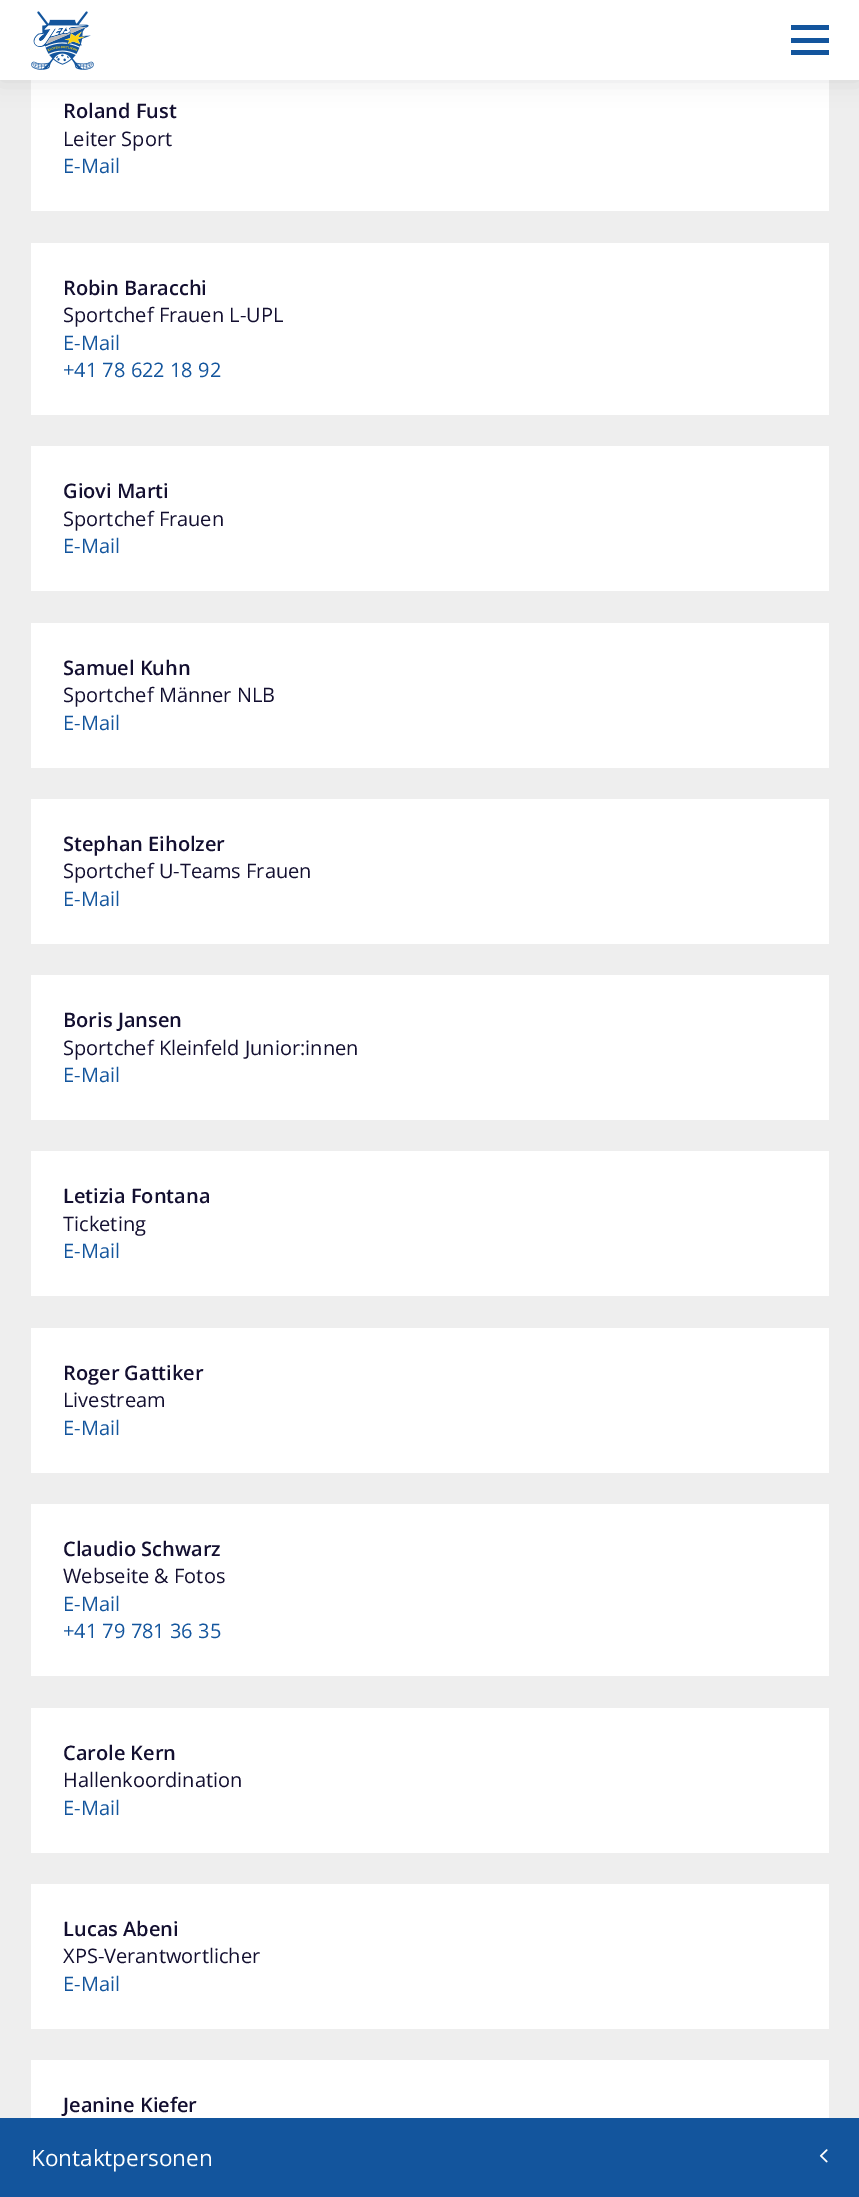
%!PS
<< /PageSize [859 2197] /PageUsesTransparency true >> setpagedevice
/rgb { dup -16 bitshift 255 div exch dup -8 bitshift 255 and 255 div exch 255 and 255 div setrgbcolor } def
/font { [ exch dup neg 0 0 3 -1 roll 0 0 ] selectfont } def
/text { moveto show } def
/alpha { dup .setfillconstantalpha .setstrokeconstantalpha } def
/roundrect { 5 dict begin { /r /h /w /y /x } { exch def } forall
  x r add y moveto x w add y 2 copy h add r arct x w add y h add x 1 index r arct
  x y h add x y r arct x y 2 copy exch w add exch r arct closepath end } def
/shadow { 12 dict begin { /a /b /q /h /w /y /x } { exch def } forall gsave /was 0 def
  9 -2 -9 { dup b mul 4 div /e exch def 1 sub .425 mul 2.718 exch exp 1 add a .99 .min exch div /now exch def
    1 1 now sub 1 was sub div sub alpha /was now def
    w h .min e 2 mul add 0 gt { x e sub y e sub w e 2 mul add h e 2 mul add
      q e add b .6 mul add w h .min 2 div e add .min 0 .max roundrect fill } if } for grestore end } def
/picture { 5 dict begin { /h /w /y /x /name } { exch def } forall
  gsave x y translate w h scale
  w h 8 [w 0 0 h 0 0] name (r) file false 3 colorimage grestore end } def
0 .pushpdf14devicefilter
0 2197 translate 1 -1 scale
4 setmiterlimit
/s1 { /OpenSans-SemiBold 20 font 16#130F30 rgb } def
/s2 { /OpenSans-Regular 20 font 16#130F30 rgb } def
/s3 { /OpenSans-Regular 20 font 16#13559D rgb } def
/s4 { /OpenSans-Regular 22.5 font 16#FFFFFF rgb } def
16#EEEEEE rgb
0 0 859 2197 rectfill
16#FFFFFF rgb
31 80 798 131 rectfill
16#3F4750 rgb
0 0 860 80 0 12.5 0.15 shadow
16#FFFFFF rgb
0 0 859 80 rectfill
(pic1.raw) 31 11 63 59 picture
16#13559D rgb
791 50 38 5 rectfill
791 25 38 5 rectfill
791 38 38 5 rectfill
s1
(Roland Fust) 63 118 text
s2
(Leiter Sport) 63 146 text
s3
(E-Mail) 63 173 text
16#FFFFFF rgb
31 243 798 172 rectfill
s1
(Robin Baracchi) 63 295 text
s2
(Sportchef Frauen L-UPL) 63 322 text
s3
(E-Mail) 63 350 text
(+41 78 622 18 92) 63 377 text
16#FFFFFF rgb
31 446 798 145 rectfill
s1
(Giovi Marti) 63 498 text
s2
(Sportchef Frauen) 63 526 text
s3
(E-Mail) 63 553 text
16#FFFFFF rgb
31 623 798 145 rectfill
s1
(Samuel Kuhn) 63 675 text
s2
(Sportchef Männer NLB) 63 702 text
s3
(E-Mail) 63 730 text
16#FFFFFF rgb
31 799 798 145 rectfill
s1
(Stephan Eiholzer) 63 851 text
s2
(Sportchef U-Teams Frauen) 63 878 text
s3
(E-Mail) 63 906 text
16#FFFFFF rgb
31 975 798 145 rectfill
s1
(Boris Jansen) 63 1027 text
s2
(Sportchef Kleinfeld Junior:innen) 63 1055 text
s3
(E-Mail) 63 1082 text
16#FFFFFF rgb
31 1151 798 145 rectfill
s1
(Letizia Fontana) 63 1203 text
s2
(Ticketing) 63 1231 text
s3
(E-Mail) 63 1258 text
16#FFFFFF rgb
31 1328 798 145 rectfill
s1
(Roger Gattiker) 63 1380 text
s2
(Livestream) 63 1407 text
s3
(E-Mail) 63 1435 text
16#FFFFFF rgb
31 1504 798 172 rectfill
s1
(Claudio Schwarz) 63 1556 text
s2
(Webseite & Fotos) 63 1583 text
s3
(E-Mail) 63 1611 text
(+41 79 781 36 35) 63 1638 text
16#FFFFFF rgb
31 1708 798 145 rectfill
s1
(Carole Kern) 63 1760 text
s2
(Hallenkoordination) 63 1787 text
s3
(E-Mail) 63 1815 text
16#FFFFFF rgb
31 1884 798 145 rectfill
s1
(Lucas Abeni) 63 1936 text
s2
(XPS-Verantwortlicher) 63 1963 text
s3
(E-Mail) 63 1991 text
16#FFFFFF rgb
31 2060 798 58 rectfill
s1
(Jeanine Kiefer) 63 2112 text
16#13559D rgb
0 2118 859 79 rectfill
s4
(Kontaktpersonen) 31 2166 text
(pic2.raw) 819 2149 9 14 picture
.poppdf14devicefilter showpage
